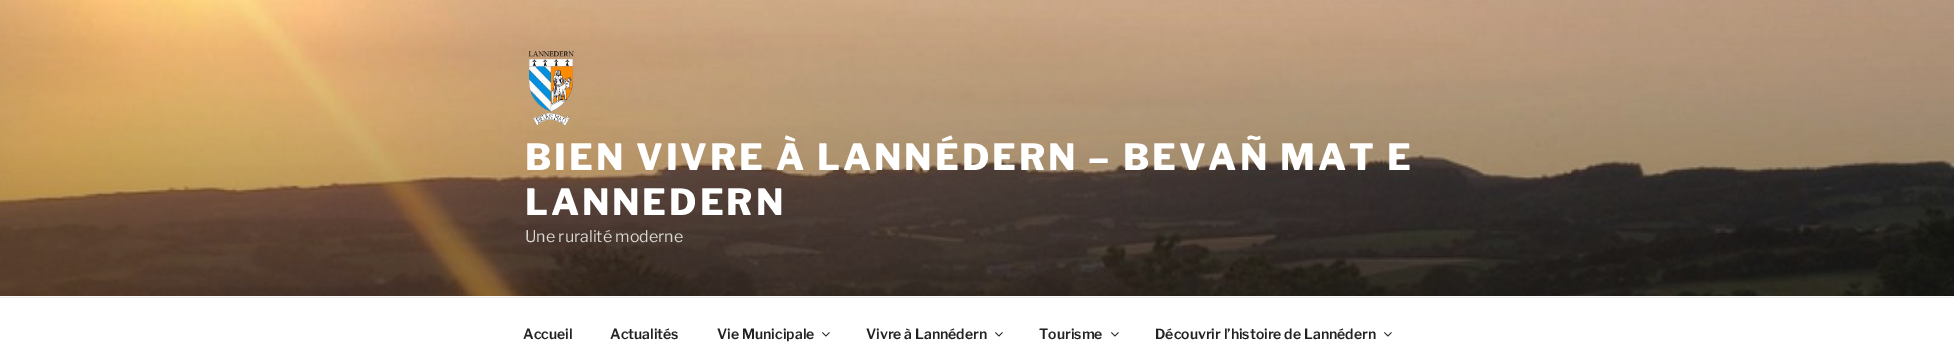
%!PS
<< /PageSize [1954 355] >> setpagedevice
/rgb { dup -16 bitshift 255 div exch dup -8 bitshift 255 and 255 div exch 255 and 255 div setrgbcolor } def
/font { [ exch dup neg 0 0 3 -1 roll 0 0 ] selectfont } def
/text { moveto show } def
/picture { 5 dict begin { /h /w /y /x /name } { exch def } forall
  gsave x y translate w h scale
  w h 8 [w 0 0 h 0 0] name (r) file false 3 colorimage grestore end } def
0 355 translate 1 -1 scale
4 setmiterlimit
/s1 { /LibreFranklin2-Thin 16 font 16#DAD7D5 rgb } def
/s2 { /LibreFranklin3-Thin 14 font 16#222222 rgb } def
16#FAFAFA rgb
0 0 1954 355 rectfill
(pic1.raw) 0 0 1954 296 picture
(pic2.raw) 528 51 46 75 picture
/LibreFranklin-Thin 36 font
16#FFFFFF rgb
525 170 moveto 2.9 0 (BIEN VIVRE À LANNÉDERN – BEVAÑ MAT E) ashow
525 215 moveto 2.9 0 (LANNEDERN) ashow
s1
(Une ruralité moderne) 525 242 text
16#FFFFFF rgb
0 298 1954 57 rectfill
16#EEEEEE rgb
0 297 1954 1 rectfill
s2
(Accueil) 523 339 text
(Actualités) 610 339 text
(Vie Municipale) 717 339 text
(pic3.raw) 822 332 8 5 picture
(Vivre à Lannédern) 866 339 text
(pic3.raw) 995 332 8 5 picture
(Tourisme) 1039 339 text
(pic3.raw) 1111 332 8 5 picture
(Découvrir l’histoire de Lannédern) 1155 339 text
(pic3.raw) 1384 332 8 5 picture
showpage
